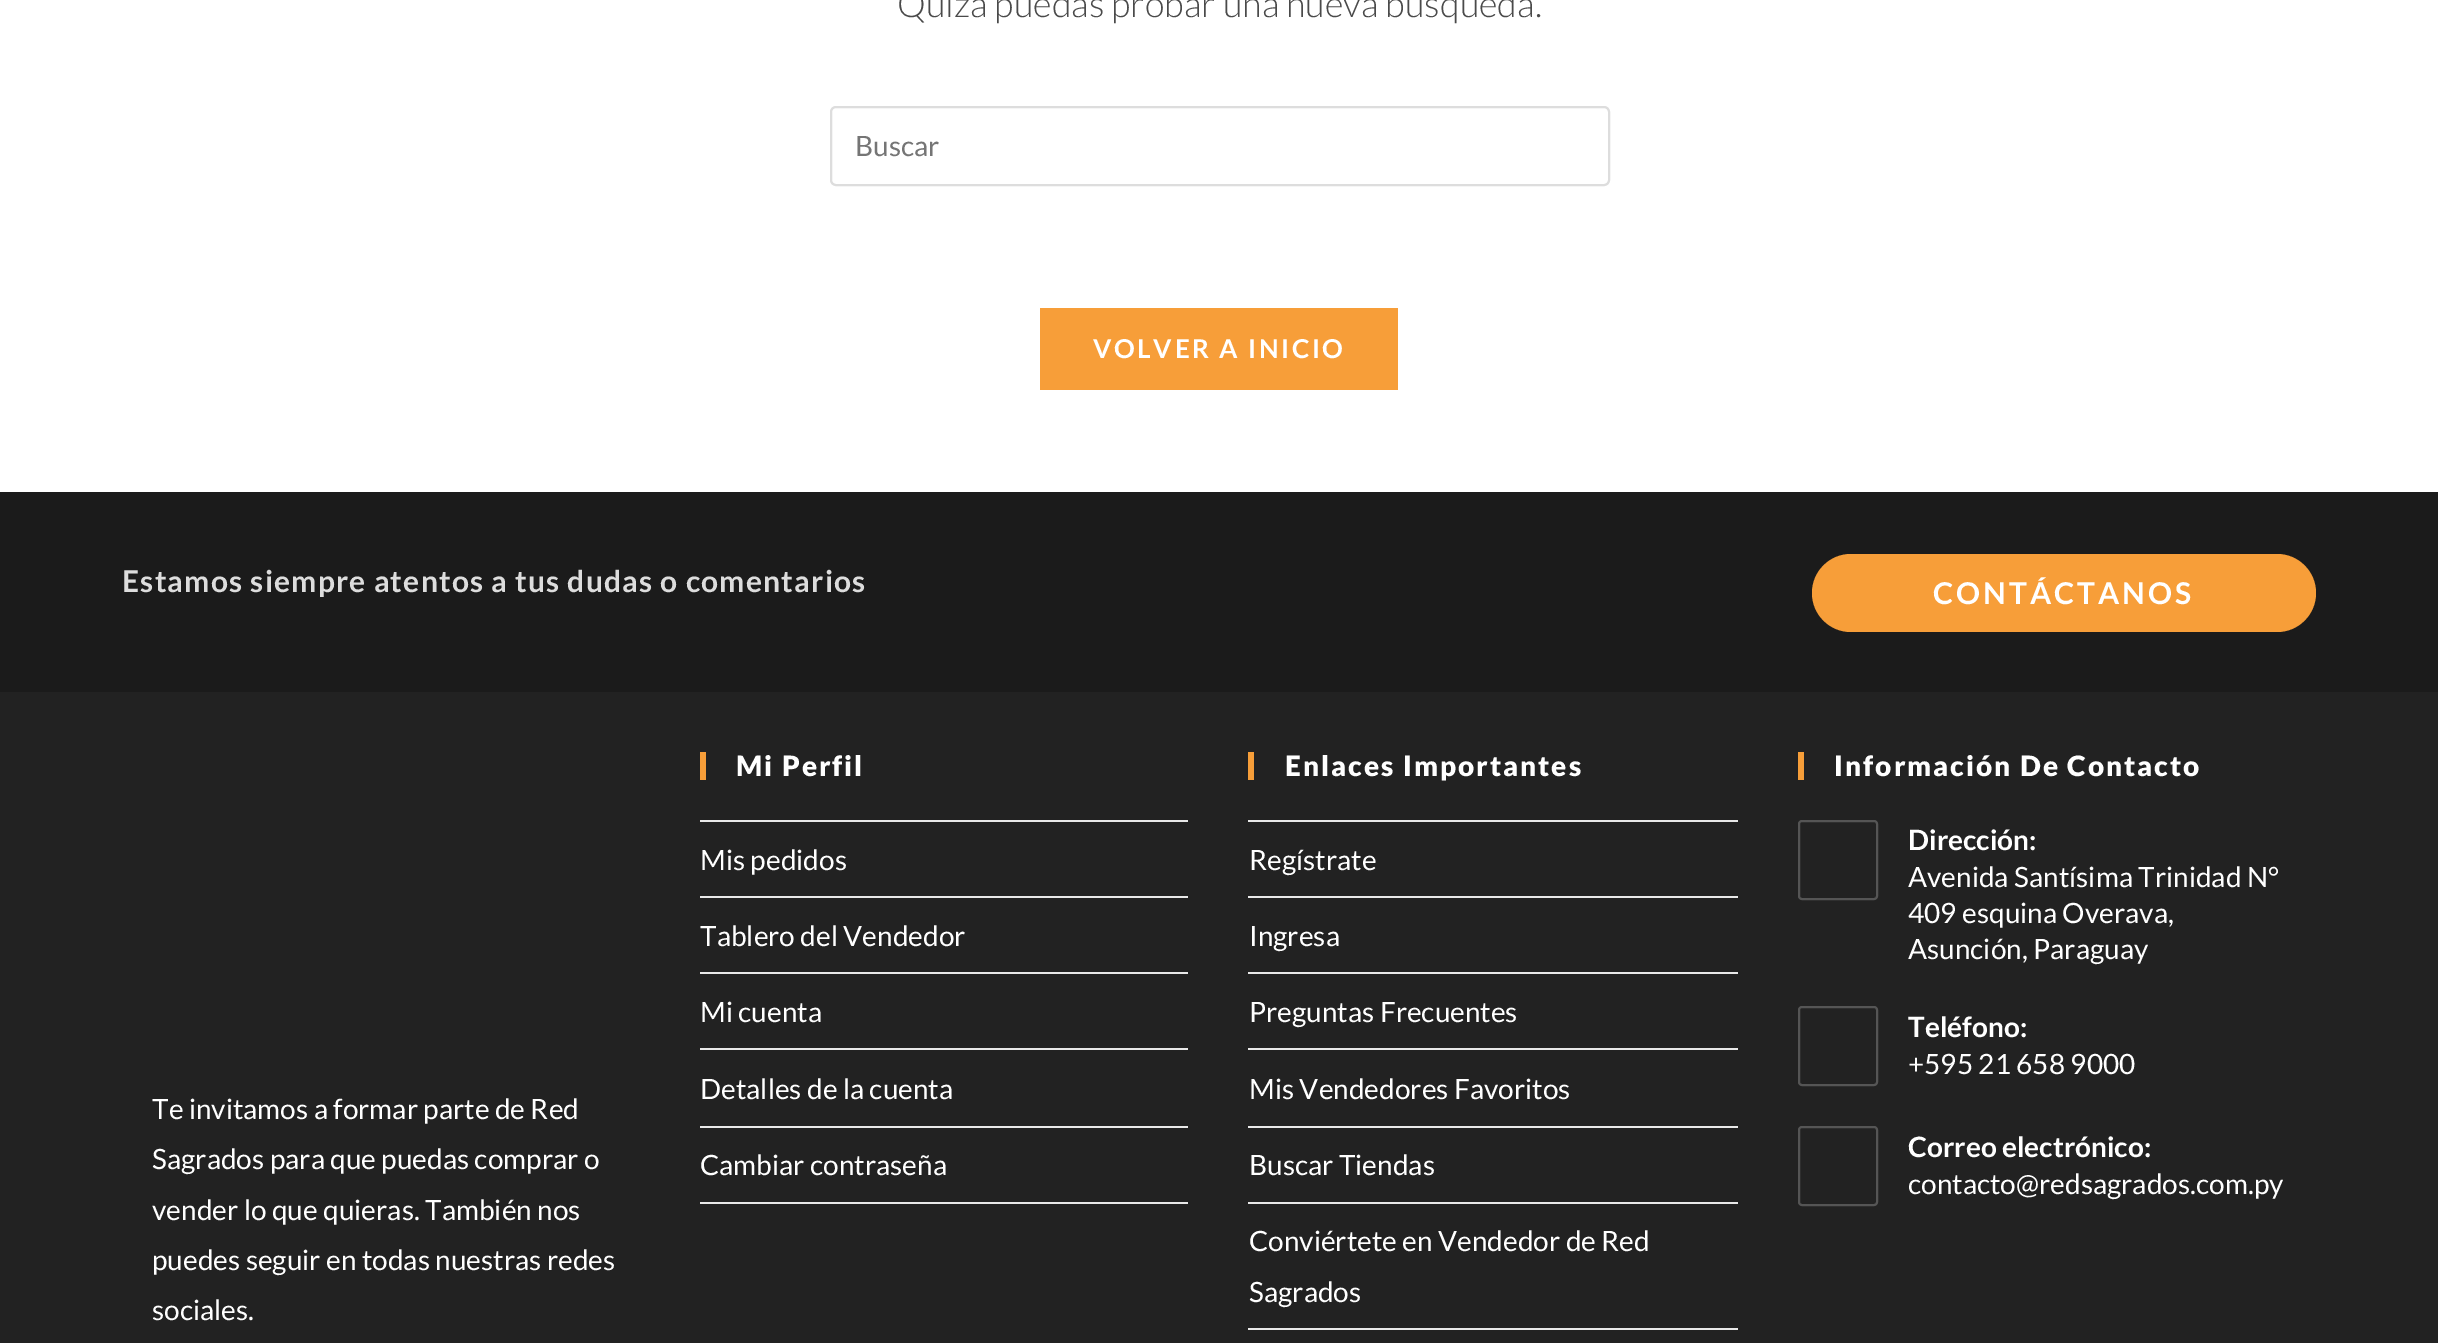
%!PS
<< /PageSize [2438 1343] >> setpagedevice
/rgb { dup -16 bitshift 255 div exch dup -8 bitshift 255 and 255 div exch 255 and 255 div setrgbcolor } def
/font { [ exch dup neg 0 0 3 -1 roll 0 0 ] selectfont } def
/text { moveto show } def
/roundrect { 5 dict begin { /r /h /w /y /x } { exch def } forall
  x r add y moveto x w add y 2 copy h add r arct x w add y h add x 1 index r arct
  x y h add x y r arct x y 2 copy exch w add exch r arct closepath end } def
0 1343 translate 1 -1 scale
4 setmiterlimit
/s1 { /Lato-Light 36 font 16#4A4A4A rgb } def
/s2 { /Lato-Regular 28 font 16#757575 rgb } def
/s3 { /Lato-Regular 28 font 16#FFFFFF rgb } def
/s4 { /Lato-Bold 28 font 16#FFFFFF rgb } def
16#FFFFFF rgb
0 0 2438 1343 rectfill
s1
(Quizá puedas probar una nueva búsqueda.) 897 17 text
16#DDDDDD rgb
2 setlinewidth
831 107 778 78 5 roundrect stroke
s2
(Buscar) 855 156 text
16#F79E39 rgb
1040 308 358 82 rectfill
/Lato-Bold 26 font
16#FFFFFF rgb
1093 358 moveto 2.6 0 (VOLVER A INICIO) ashow
16#1B1B1B rgb
0 492 2438 200 rectfill
/Lato-Bold 30 font
16#DDDDDD rgb
122 592 moveto 1.2 0 (Estamos siempre atentos a tus dudas o comentarios) ashow
16#F79E39 rgb
1812 554 504 78 39 roundrect fill
16#FFFFFF rgb
1933 604 moveto 3 0 (CONTÁCTANOS) ashow
16#222222 rgb
0 692 2438 651 rectfill
s3
(Te invitamos a formar parte de Red) 152 1119 text
(Sagrados para que puedas comprar o) 152 1169 text
(vender lo que quieras. También nos) 152 1220 text
(puedes seguir en todas nuestras redes) 152 1270 text
(sociales.) 152 1320 text
16#F79E39 rgb
700 752 6 28 rectfill
/Lato-Black 28 font
16#FFFFFF rgb
736 776 moveto 2 0 (Mi Perfil) ashow
16#E9E9E9 rgb
700 820 488 2 rectfill
700 896 488 2 rectfill
s3
(Mis pedidos) 700 870 text
16#E9E9E9 rgb
700 972 488 2 rectfill
s3
(Tablero del Vendedor) 700 946 text
16#E9E9E9 rgb
700 1048 488 2 rectfill
s3
(Mi cuenta) 700 1022 text
16#E9E9E9 rgb
700 1126 488 2 rectfill
s3
(Detalles de la cuenta) 700 1099 text
16#E9E9E9 rgb
700 1202 488 2 rectfill
s3
(Cambiar contraseña) 700 1175 text
16#F79E39 rgb
1248 752 6 28 rectfill
/Lato-Black 28 font
16#FFFFFF rgb
1285 776 moveto 2 0 (Enlaces Importantes) ashow
16#E9E9E9 rgb
1248 820 490 2 rectfill
1248 896 490 2 rectfill
s3
(Regístrate) 1249 870 text
16#E9E9E9 rgb
1248 972 490 2 rectfill
s3
(Ingresa) 1249 946 text
16#E9E9E9 rgb
1248 1048 490 2 rectfill
s3
(Preguntas Frecuentes) 1249 1022 text
16#E9E9E9 rgb
1248 1126 490 2 rectfill
s3
(Mis Vendedores Favoritos) 1249 1099 text
16#E9E9E9 rgb
1248 1202 490 2 rectfill
s3
(Buscar Tiendas) 1249 1175 text
16#E9E9E9 rgb
1248 1328 490 2 rectfill
s3
(Conviértete en Vendedor de Red) 1249 1251 text
(Sagrados) 1249 1302 text
16#F79E39 rgb
1798 752 6 28 rectfill
/Lato-Black 28 font
16#FFFFFF rgb
1834 776 moveto 2 0 (Información De Contacto) ashow
16#555555 rgb
1799 821 78 78 3 roundrect stroke
s4
(Dirección:) 1908 850 text
s3
(Avenida Santísima Trinidad N°) 1908 887 text
(409 esquina Overava,) 1908 923 text
(Asunción, Paraguay) 1908 959 text
16#555555 rgb
1799 1007 78 78 3 roundrect stroke
s4
(Teléfono:) 1908 1037 text
s3
(+595 21 658 9000) 1908 1074 text
16#555555 rgb
1799 1127 78 78 3 roundrect stroke
s4
(Correo electrónico:) 1908 1157 text
s3
(contacto@redsagrados.com.py) 1908 1194 text
showpage
